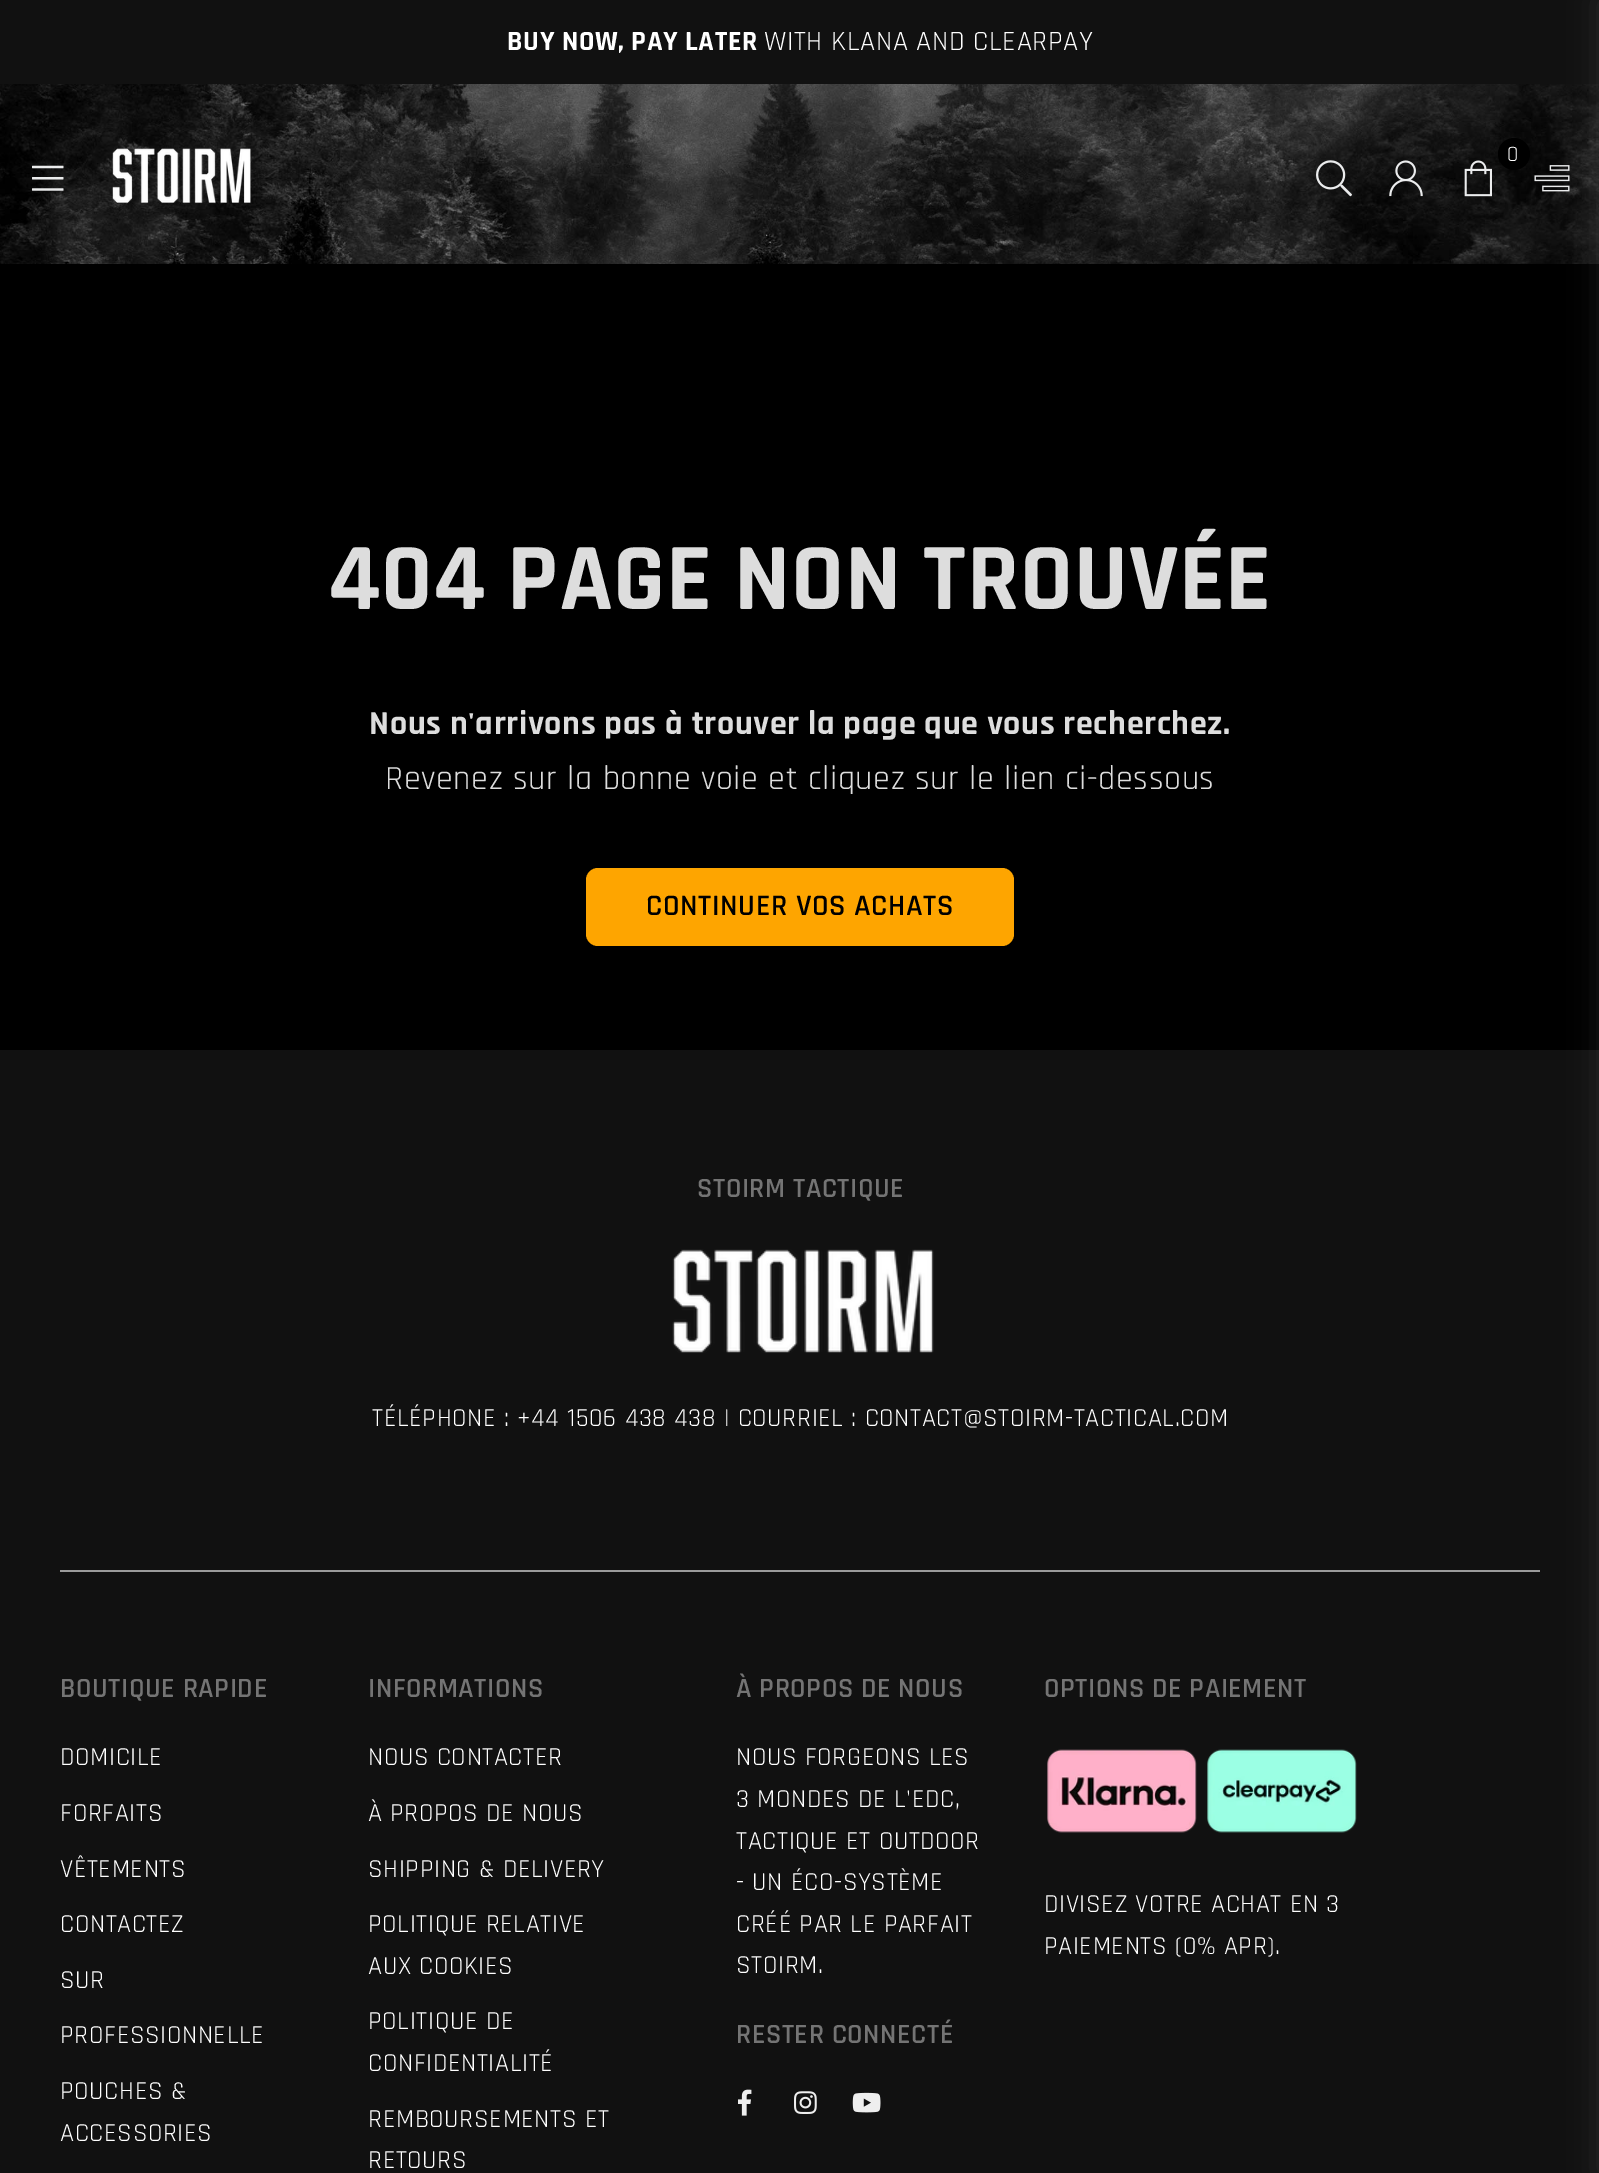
%!PS
<< /PageSize [1599 2173] /PageUsesTransparency true >> setpagedevice
/rgb { dup -16 bitshift 255 div exch dup -8 bitshift 255 and 255 div exch 255 and 255 div setrgbcolor } def
/font { [ exch dup neg 0 0 3 -1 roll 0 0 ] selectfont } def
/alpha { dup .setfillconstantalpha .setstrokeconstantalpha } def
/circle { newpath 0 360 arc closepath } def
/roundrect { 5 dict begin { /r /h /w /y /x } { exch def } forall
  x r add y moveto x w add y 2 copy h add r arct x w add y h add x 1 index r arct
  x y h add x y r arct x y 2 copy exch w add exch r arct closepath end } def
/shadow { 12 dict begin { /a /b /q /h /w /y /x } { exch def } forall gsave /was 0 def
  9 -2 -9 { dup b mul 4 div /e exch def 1 sub .425 mul 2.718 exch exp 1 add a .99 .min exch div /now exch def
    1 1 now sub 1 was sub div sub alpha /was now def
    w h .min e 2 mul add 0 gt { x e sub y e sub w e 2 mul add h e 2 mul add
      q e add b .6 mul add w h .min 2 div e add .min 0 .max roundrect fill } if } for grestore end } def
/picture { 5 dict begin { /h /w /y /x /name } { exch def } forall
  gsave x y translate w h scale
  w h 8 [w 0 0 h 0 0] name (r) file false 3 colorimage grestore end } def
0 .pushpdf14devicefilter
0 2173 translate 1 -1 scale
4 setmiterlimit
16#000000 rgb
0 0 1599 2173 rectfill
16#111111 rgb
0 0 1599 84 rectfill
/Rajdhani-Bold 28 font
16#FFFFFF rgb
507 50 moveto 0.68 0 (BUY NOW, PAY LATER) ashow
/Rajdhani-Regular 28 font
764 50 moveto 0.68 0 (WITH KLANA AND CLEARPAY) ashow
(pic1.raw) 0 84 1599 180 picture
(pic2.raw) 32 165 32 26 picture
(pic3.raw) 112 148 139 55 picture
16#000000 rgb
1514 154 16 circle fill
/Rajdhani-Regular 22 font
16#FFFFFF rgb
1507 161 moveto 0.68 0 (0) ashow
(pic4.raw) 1464 160 28 37 picture
(pic5.raw) 1316 160 36 37 picture
(pic6.raw) 1389 160 34 37 picture
(pic7.raw) 1534 165 36 27 picture
/Rajdhani-Bold 96 font
16#DDDDDD rgb
328 609 moveto 0.68 0 (404 PAGE NON TROUVÉE) ashow
/Rajdhani-Bold 34 font
369 734 moveto 0.68 0 (Nous n'arrivons pas à trouver la page que vous recherchez.) ashow
/Rajdhani-Regular 34 font
385 789 moveto 0.68 0 (Revenez sur la bonne voie et cliquez sur le lien ci-dessous) ashow
16#FEA500 rgb
586 868 428 78 12 roundrect fill
/Rajdhani-SemiBold 30 font
16#000000 rgb
646 915 moveto 0.68 0 (CONTINUER VOS ACHATS) ashow
16#111111 rgb
0 1050 1599 1123 rectfill
/Rajdhani-SemiBold 28 font
16#747474 rgb
697 1197 moveto 0.6 0 (STOIRM TACTIQUE) ashow
(pic8.raw) 672 1249 262 104 picture
/Rajdhani-Regular 26 font
16#FFFFFF rgb
372 1426 moveto 0.68 0 (TÉLÉPHONE : +44 1506 438 438 | COURRIEL : CONTACT@STOIRM-TACTICAL.COM) ashow
16#9B9B9B rgb
60 1570 1480 2 rectfill
/Rajdhani-SemiBold 28 font
16#747474 rgb
60 1697 moveto 0.6 0 (BOUTIQUE RAPIDE) ashow
/Rajdhani-Regular 26 font
16#FFFFFF rgb
60 1765 moveto 0.68 0 (DOMICILE) ashow
60 1821 moveto 0.68 0 (FORFAITS) ashow
60 1877 moveto 0.68 0 (VÊTEMENTS) ashow
60 1932 moveto 0.68 0 (CONTACTEZ) ashow
60 1988 moveto 0.68 0 (SUR) ashow
60 2043 moveto 0.68 0 (PROFESSIONNELLE) ashow
60 2099 moveto 0.68 0 (POUCHES &) ashow
60 2141 moveto 0.68 0 (ACCESSORIES) ashow
/Rajdhani-SemiBold 28 font
16#747474 rgb
368 1697 moveto 0.6 0 (INFORMATIONS) ashow
/Rajdhani-Regular 26 font
16#FFFFFF rgb
368 1765 moveto 0.68 0 (NOUS CONTACTER) ashow
368 1821 moveto 0.68 0 (À PROPOS DE NOUS) ashow
368 1877 moveto 0.68 0 (SHIPPING & DELIVERY) ashow
368 1932 moveto 0.68 0 (POLITIQUE RELATIVE) ashow
368 1974 moveto 0.68 0 (AUX COOKIES) ashow
368 2029 moveto 0.68 0 (POLITIQUE DE) ashow
368 2071 moveto 0.68 0 (CONFIDENTIALITÉ) ashow
368 2127 moveto 0.68 0 (REMBOURSEMENTS ET) ashow
368 2168 moveto 0.68 0 (RETOURS) ashow
/Rajdhani-SemiBold 28 font
16#747474 rgb
736 1697 moveto 0.6 0 (À PROPOS DE NOUS) ashow
/Rajdhani-Regular 26 font
16#FFFFFF rgb
736 1765 moveto 0.68 0 (NOUS FORGEONS LES) ashow
736 1807 moveto 0.68 0 (3 MONDES DE L'EDC,) ashow
736 1849 moveto 0.68 0 (TACTIQUE ET OUTDOOR) ashow
736 1890 moveto 0.68 0 (- UN ÉCO-SYSTÈME) ashow
736 1932 moveto 0.68 0 (CRÉÉ PAR LE PARFAIT) ashow
736 1973 moveto 0.68 0 (STOIRM.) ashow
/Rajdhani-SemiBold 28 font
16#747474 rgb
736 2043 moveto 0.6 0 (RESTER CONNECTÉ) ashow
(pic9.raw) 738 2089 14 27 picture
(pic10.raw) 794 2091 23 23 picture
(pic11.raw) 852 2092 29 21 picture
1044 1697 moveto 0.6 0 (OPTIONS DE PAIEMENT) ashow
(pic12.raw) 1047 1749 310 84 picture
/Rajdhani-Regular 26 font
16#FFFFFF rgb
1044 1912 moveto 0.68 0 (DIVISEZ VOTRE ACHAT EN 3) ashow
1044 1954 moveto 0.68 0 (PAIEMENTS \(0% APR\).) ashow
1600 0 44 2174 0 15 0.1 shadow
.poppdf14devicefilter showpage
